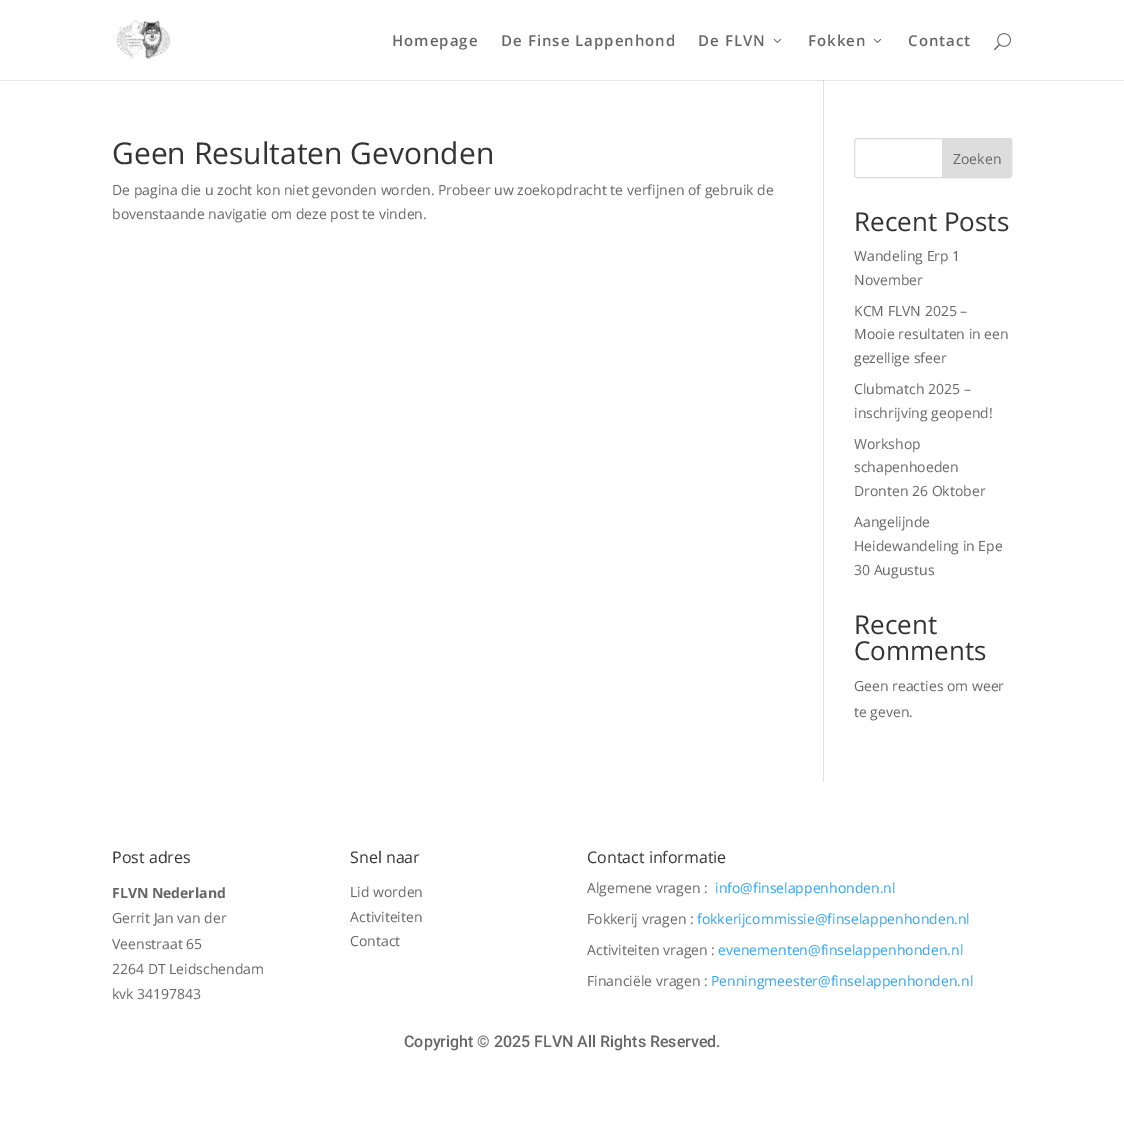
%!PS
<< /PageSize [1124 1124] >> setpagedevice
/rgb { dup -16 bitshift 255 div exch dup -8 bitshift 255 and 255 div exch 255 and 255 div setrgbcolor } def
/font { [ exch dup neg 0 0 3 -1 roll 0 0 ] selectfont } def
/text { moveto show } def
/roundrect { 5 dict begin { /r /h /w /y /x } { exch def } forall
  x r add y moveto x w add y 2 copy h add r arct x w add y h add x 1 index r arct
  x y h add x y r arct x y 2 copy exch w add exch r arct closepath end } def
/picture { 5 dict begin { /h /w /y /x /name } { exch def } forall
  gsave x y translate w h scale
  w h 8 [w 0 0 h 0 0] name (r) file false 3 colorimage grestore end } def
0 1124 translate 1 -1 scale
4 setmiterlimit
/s1 { /OpenSans-Regular 30 font 16#333333 rgb } def
/s2 { /OpenSans-Regular 14 font 16#666666 rgb } def
/s3 { /OpenSans-Regular 26 font 16#333333 rgb } def
/s4 { /OpenSans-Regular 16 font 16#333333 rgb } def
/s5 { /OpenSans-Bold 14 font 16#666666 rgb } def
/s6 { /OpenSans-Regular 14 font 16#2EA3F2 rgb } def
/s7 { /Roboto-Medium 16 font 16#666666 rgb } def
16#FFFFFF rgb
0 0 1124 1124 rectfill
16#E6E6E6 rgb
0 80 1124 1 rectfill
(pic1.raw) 116 20 55 40 picture
/OpenSans-SemiBold 15 font
16#666666 rgb
392 46 moveto 1 0 (Homepage) ashow
501 46 moveto 1 0 (De Finse Lappenhond) ashow
698 46 moveto 1 0 (De FLVN) ashow
(pic2.raw) 773 38 9 5 picture
808 46 moveto 1 0 (Fokken) ashow
(pic2.raw) 873 38 9 5 picture
908 46 moveto 1 0 (Contact) ashow
(pic3.raw) 994 33 17 18 picture
16#E2E2E2 rgb
823 80 1 702 rectfill
16#CBCBCB rgb
823 80 1 1 rectfill
s1
(Geen Resultaten Gevonden) 112 164 text
s2
(De pagina die u zocht kon niet gevonden worden. Probeer uw zoekopdracht te verfijnen of gebruik de) 112 195 text
(bovenstaande navigatie om deze post te vinden.) 112 219 text
16#DDDDDD rgb
854.5 138.5 157 39 2.5 roundrect stroke
942.5 138.5 moveto 1009 138.5 lineto 1010.5 138.5 1011.5 139.5 1011.5 141 curveto 1011.5 175 lineto 1011.5 176.5 1010.5 177.5 1009 177.5 curveto 942.5 177.5 lineto closepath gsave fill grestore
stroke
s2
(Zoeken) 953 164 text
s3
(Recent Posts) 854 231 text
s2
(Wandeling Erp 1) 854 261 text
(November) 854 285 text
(KCM FLVN 2025 –) 854 316 text
(Mooie resultaten in een) 854 339 text
(gezellige sfeer) 854 363 text
(Clubmatch 2025 –) 854 394 text
(inschrijving geopend!) 854 418 text
(Workshop) 854 449 text
(schapenhoeden) 854 472 text
(Dronten 26 Oktober) 854 496 text
(Aangelijnde) 854 527 text
(Heidewandeling in Epe) 854 551 text
(30 Augustus) 854 575 text
s3
(Recent) 854 634 text
(Comments) 854 660 text
s2
(Geen reacties om weer) 854 691 text
(te geven.) 854 717 text
s4
(Post adres) 112 863 text
s5
(FLVN Nederland) 112 898 text
s2
(Gerrit Jan van der) 112 923 text
(Veenstraat 65) 112 949 text
(2264 DT Leidschendam) 112 974 text
(kvk 34197843) 112 999 text
s4
(Snel naar) 350 863 text
s2
(Lid worden) 350 897 text
(Activiteiten) 350 922 text
(Contact) 350 946 text
s4
(Contact informatie) 587 863 text
s2
(Algemene vragen :) 587 893 text
s6
(info@finselappenhonden.nl) 715 893 text
s2
(Fokkerij vragen :) 587 924 text
s6
(fokkerijcommissie@finselappenhonden.nl) 697 924 text
s2
(Activiteiten vragen :) 587 955 text
s6
(evenementen@finselappenhonden.nl) 718 955 text
s2
(Financiële vragen :) 587 986 text
s6
(Penningmeester@finselappenhonden.nl) 711 986 text
s7
(Copyright © 2025 FLVN All Rights Reserved.) 404 1047 text
showpage
